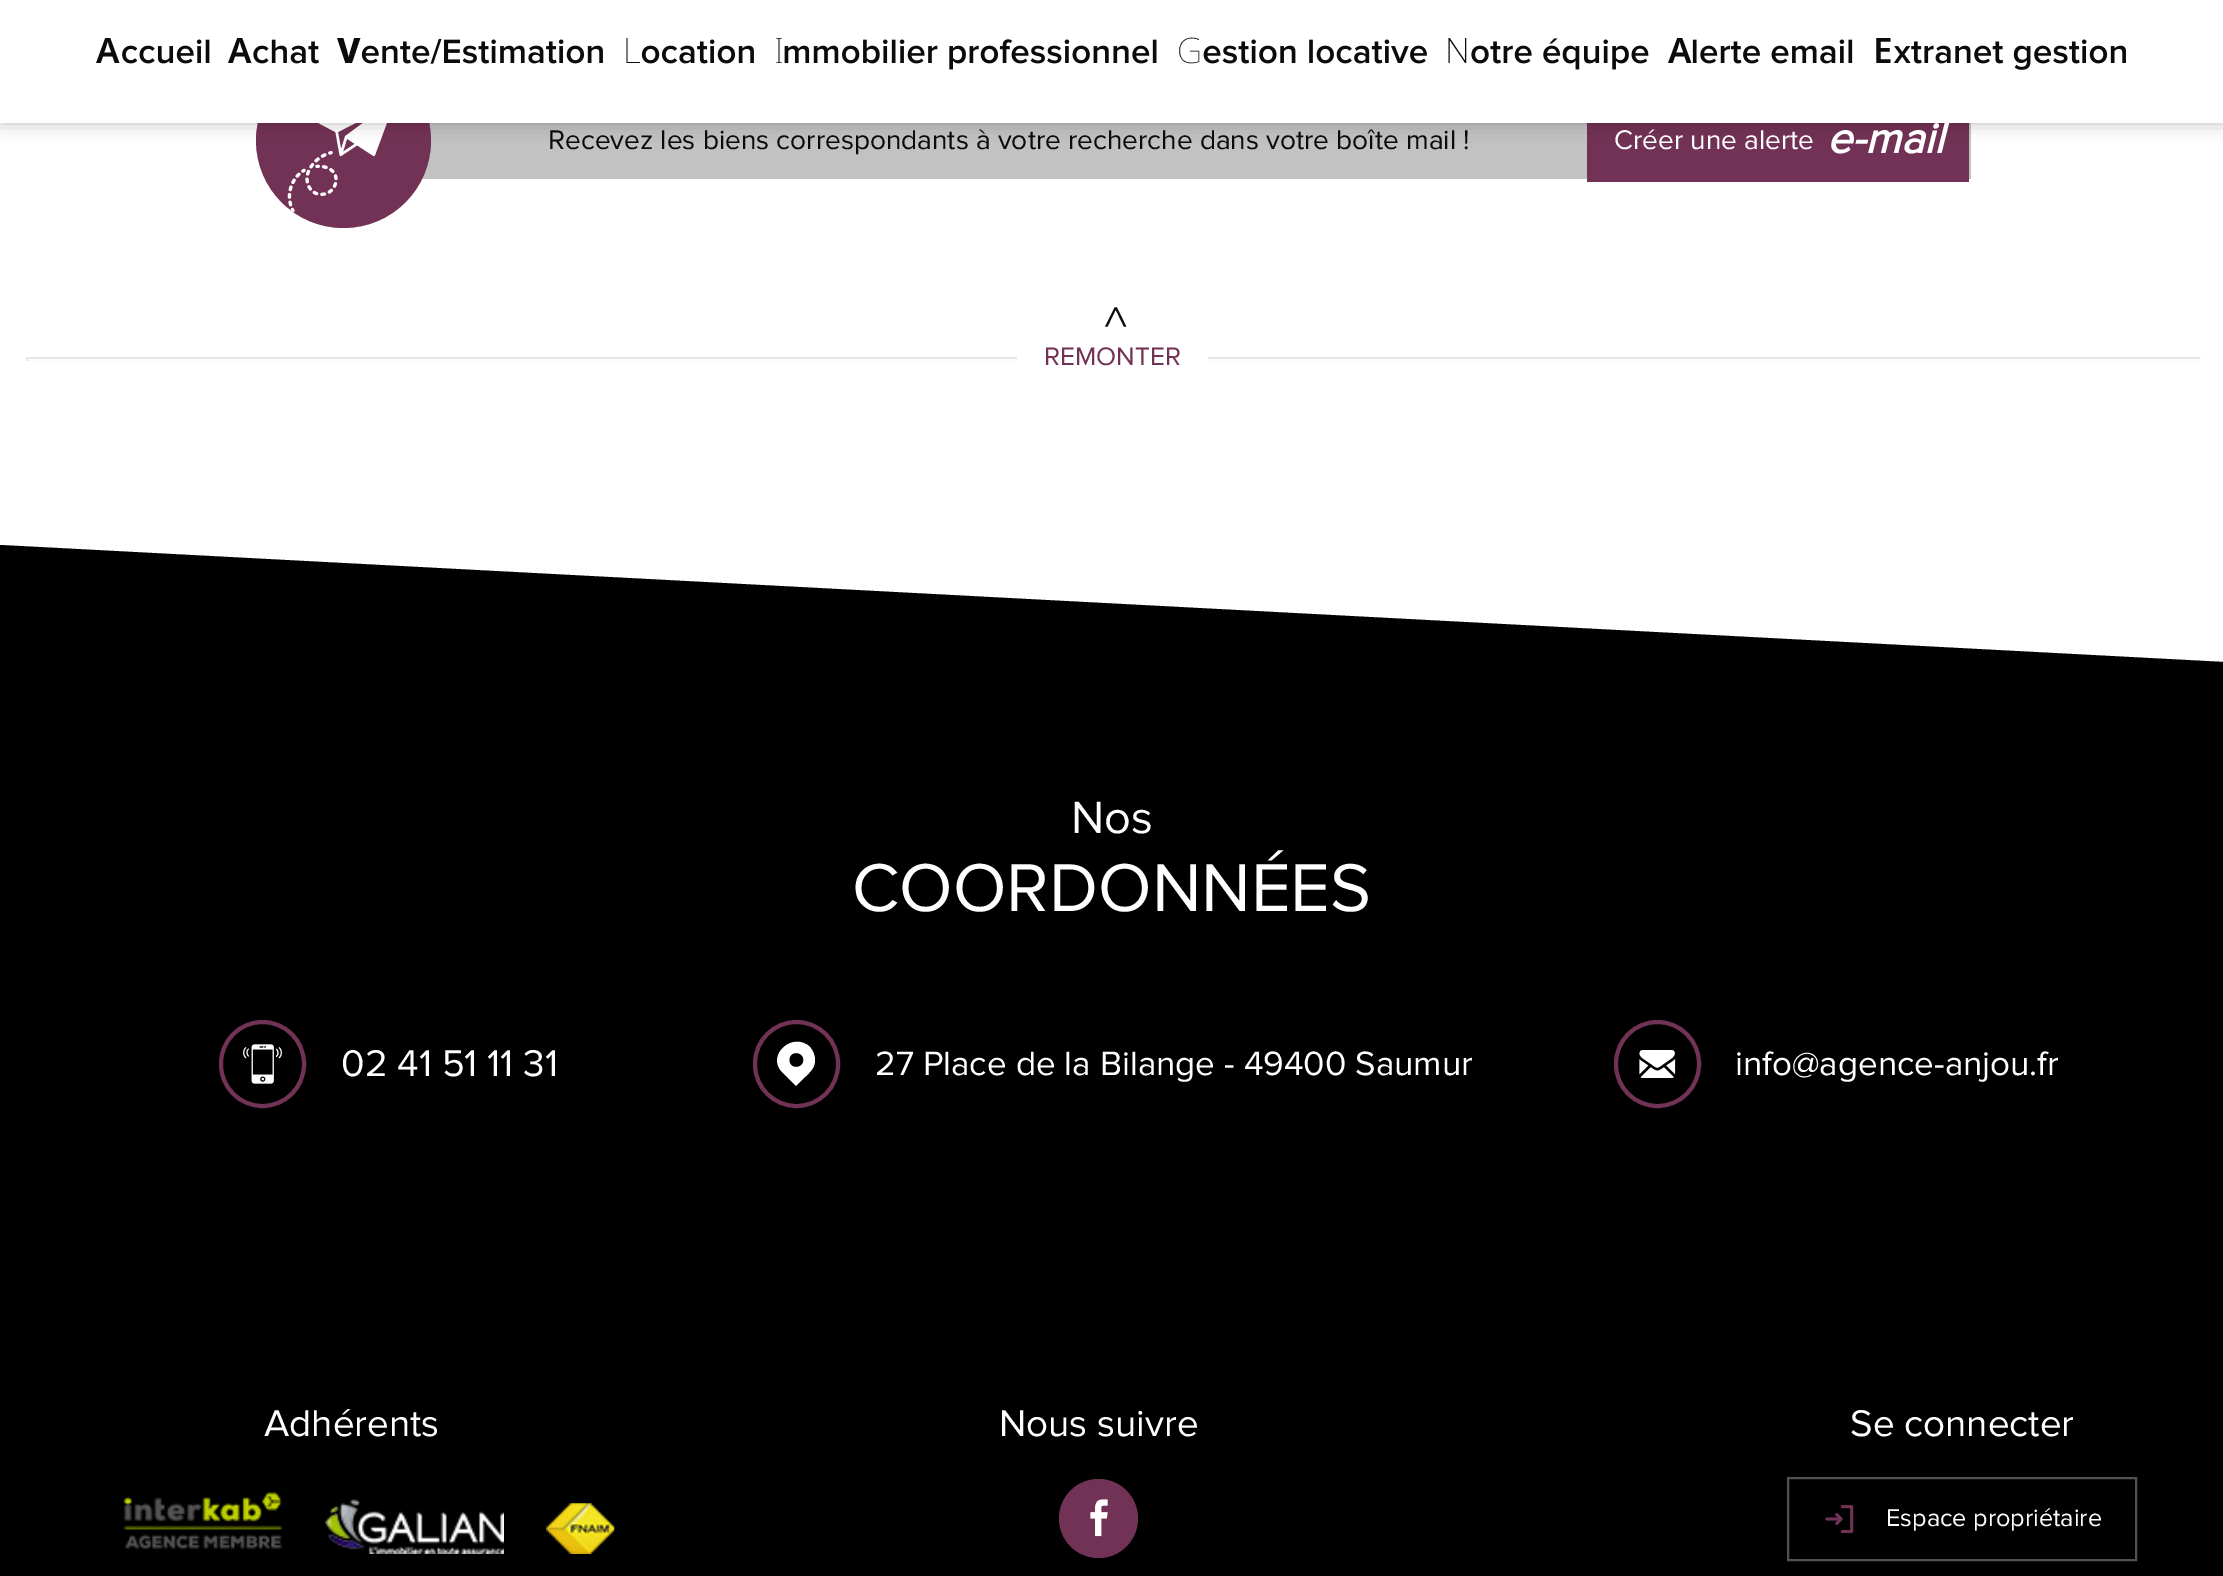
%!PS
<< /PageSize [2223 1576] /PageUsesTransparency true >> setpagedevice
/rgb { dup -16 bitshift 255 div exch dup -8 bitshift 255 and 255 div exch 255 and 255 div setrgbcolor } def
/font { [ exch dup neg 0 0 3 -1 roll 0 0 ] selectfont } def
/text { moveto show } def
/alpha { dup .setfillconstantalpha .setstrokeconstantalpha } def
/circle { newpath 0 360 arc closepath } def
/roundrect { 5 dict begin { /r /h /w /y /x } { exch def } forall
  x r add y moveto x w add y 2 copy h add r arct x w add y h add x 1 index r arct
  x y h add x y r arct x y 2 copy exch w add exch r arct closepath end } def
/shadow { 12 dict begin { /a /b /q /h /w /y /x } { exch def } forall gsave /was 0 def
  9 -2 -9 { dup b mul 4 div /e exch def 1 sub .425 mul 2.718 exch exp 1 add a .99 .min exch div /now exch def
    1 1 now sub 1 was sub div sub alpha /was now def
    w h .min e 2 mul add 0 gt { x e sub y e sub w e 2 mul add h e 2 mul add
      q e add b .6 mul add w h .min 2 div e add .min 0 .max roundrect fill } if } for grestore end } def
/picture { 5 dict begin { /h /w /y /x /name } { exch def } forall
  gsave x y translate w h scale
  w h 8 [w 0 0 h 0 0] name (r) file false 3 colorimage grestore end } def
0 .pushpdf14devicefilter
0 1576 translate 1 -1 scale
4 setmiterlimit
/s1 { /NotoSans-SemiBold 35 font 16#090B0C rgb } def
/s2 { /NotoSans-ExtraBold 35 font 16#090B0C rgb } def
/s3 { /NotoSans-Thin 35 font 16#090B0C rgb } def
/s4 { /NotoSans-ExtraLight 35 font 16#090B0C rgb } def
/s5 { /ProximaNova-Regular 28 font 16#090B0C rgb } def
/s6 { /ProximaNova-Regular 28 font 16#FFFFFF rgb } def
/s7 { /ProximaNova-BoldItalic 44 font 16#FFFFFF rgb } def
/s8 { /ProximaNova-Regular 26.25 font 16#723255 rgb } def
/s9 { /ProximaNova-Regular 47 font 16#FFFFFF rgb } def
/s10 { /ProximaNova-Regular 70 font 16#FFFFFF rgb } def
/s11 { /ProximaNova-Regular 38.5 font 16#FFFFFF rgb } def
/s12 { /ProximaNova-Regular 35 font 16#FFFFFF rgb } def
/s13 { /ProximaNova-Regular 25.25 font 16#FFFFFF rgb } def
16#FFFFFF rgb
0 0 2223 1576 rectfill
16#C2C2C3 rgb
295.5 100 moveto 1971 100 lineto 1971 179 lineto 295.5 179 lineto 273.5 179 256 161.5 256 139.5 curveto 256 117.5 273.5 100 295.5 100 curveto closepath fill
16#723255 rgb
343.5 140.5 87.5 circle fill
(pic10.raw) 287 123 100 89 picture
1587 123 382 59 rectfill
16#000000 rgb
0 0 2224 123 0 9 0.25 shadow
16#FFFFFF rgb
0 0 2223 123 rectfill
s1
(A) 96 63 text
(pic1.raw) 122 39 88 25 picture
(A) 228 63 text
(pic2.raw) 253 39 66 25 picture
s2
(V) 337 63 text
(pic3.raw) 361 38 242 26 picture
s3
(L) 623 63 text
(pic4.raw) 641 39 113 25 picture
(I) 774 63 text
(pic5.raw) 784 39 373 31 picture
(G) 1177 63 text
(pic6.raw) 1203 39 224 25 picture
s4
(N) 1445 63 text
(pic7.raw) 1471 38 178 32 picture
s1
(A) 1668 63 text
(pic8.raw) 1692 39 161 25 picture
(E) 1873 63 text
(pic9.raw) 1893 39 233 31 picture
s5
(Recevez les biens correspondants à votre recherche dans votre boîte mail !) 548 149 text
s6
(Créer une alerte) 1614 149 text
s7
(e-mail) 1827 153 text
16#E7E7E7 rgb
26 357 2176 2 rectfill
16#FBFBFB rgb
2200 357 2 4 rectfill
26 359 2176 2 rectfill
16#FFFFFF rgb
1017 357 191 4 rectfill
/ProximaNova-Regular 44 font
16#090B0C rgb
gsave 1101 306 translate 90 rotate 0 0 moveto (<) show grestore
s8
(REMONTER) 1044 365 text
16#E7E7E7 rgb
26 357 2 4 rectfill
gsave
0 516 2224 805 rectclip
16#000000 rgb
0 545 moveto 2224 662 lineto 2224 1468 lineto 0 1351 lineto closepath fill
grestore
s9
(Nos) 1071 833 text
s10
(COORDONNÉES) 852 911 text
16#723255 rgb
4 setlinewidth
221 1022 83 84 41.5 roundrect stroke
(pic11.raw) 243 1044 39 40 picture
s11
(02 41 51 11 31) 341 1076 text
16#723255 rgb
755 1022 83 84 41.5 roundrect stroke
16#FFFFFF rgb
815 1060 moveto 815 1055 813 1051 810 1047 curveto 793 1031 766 1055 782 1072 curveto 796 1086 lineto 805 1077 lineto 810 1072 815 1068 815 1060 curveto closepath 796 1067 moveto 787 1067 787 1053 796 1053 curveto 806 1053 806 1067 796 1067 curveto closepath fill
s12
(27 Place de la Bilange - 49400 Saumur) 875 1075 text
16#723255 rgb
1616 1022 83 84 41.5 roundrect stroke
(pic12.raw) 1639 1050 37 28 picture
s12
(info@agence-anjou.fr) 1735 1075 text
16#000000 rgb
0 1321 2223 255 rectfill
s11
(Adhérents) 264 1436 text
(pic13.raw) 123 1492 160 58 picture
(pic14.raw) 325 1499 179 55 picture
(pic15.raw) 546 1503 69 51 picture
(Nous suivre) 999 1436 text
16#723255 rgb
1098.5 1518.5 39.5 circle fill
(pic16.raw) 1090 1499 18 38 picture
s11
(Se connecter) 1850 1436 text
16#525252 rgb
2 setlinewidth
1788 1478 348 82 rectstroke
(pic17.raw) 1825 1505 29 29 picture
s13
(Espace propriétaire) 1886 1526 text
.poppdf14devicefilter showpage
